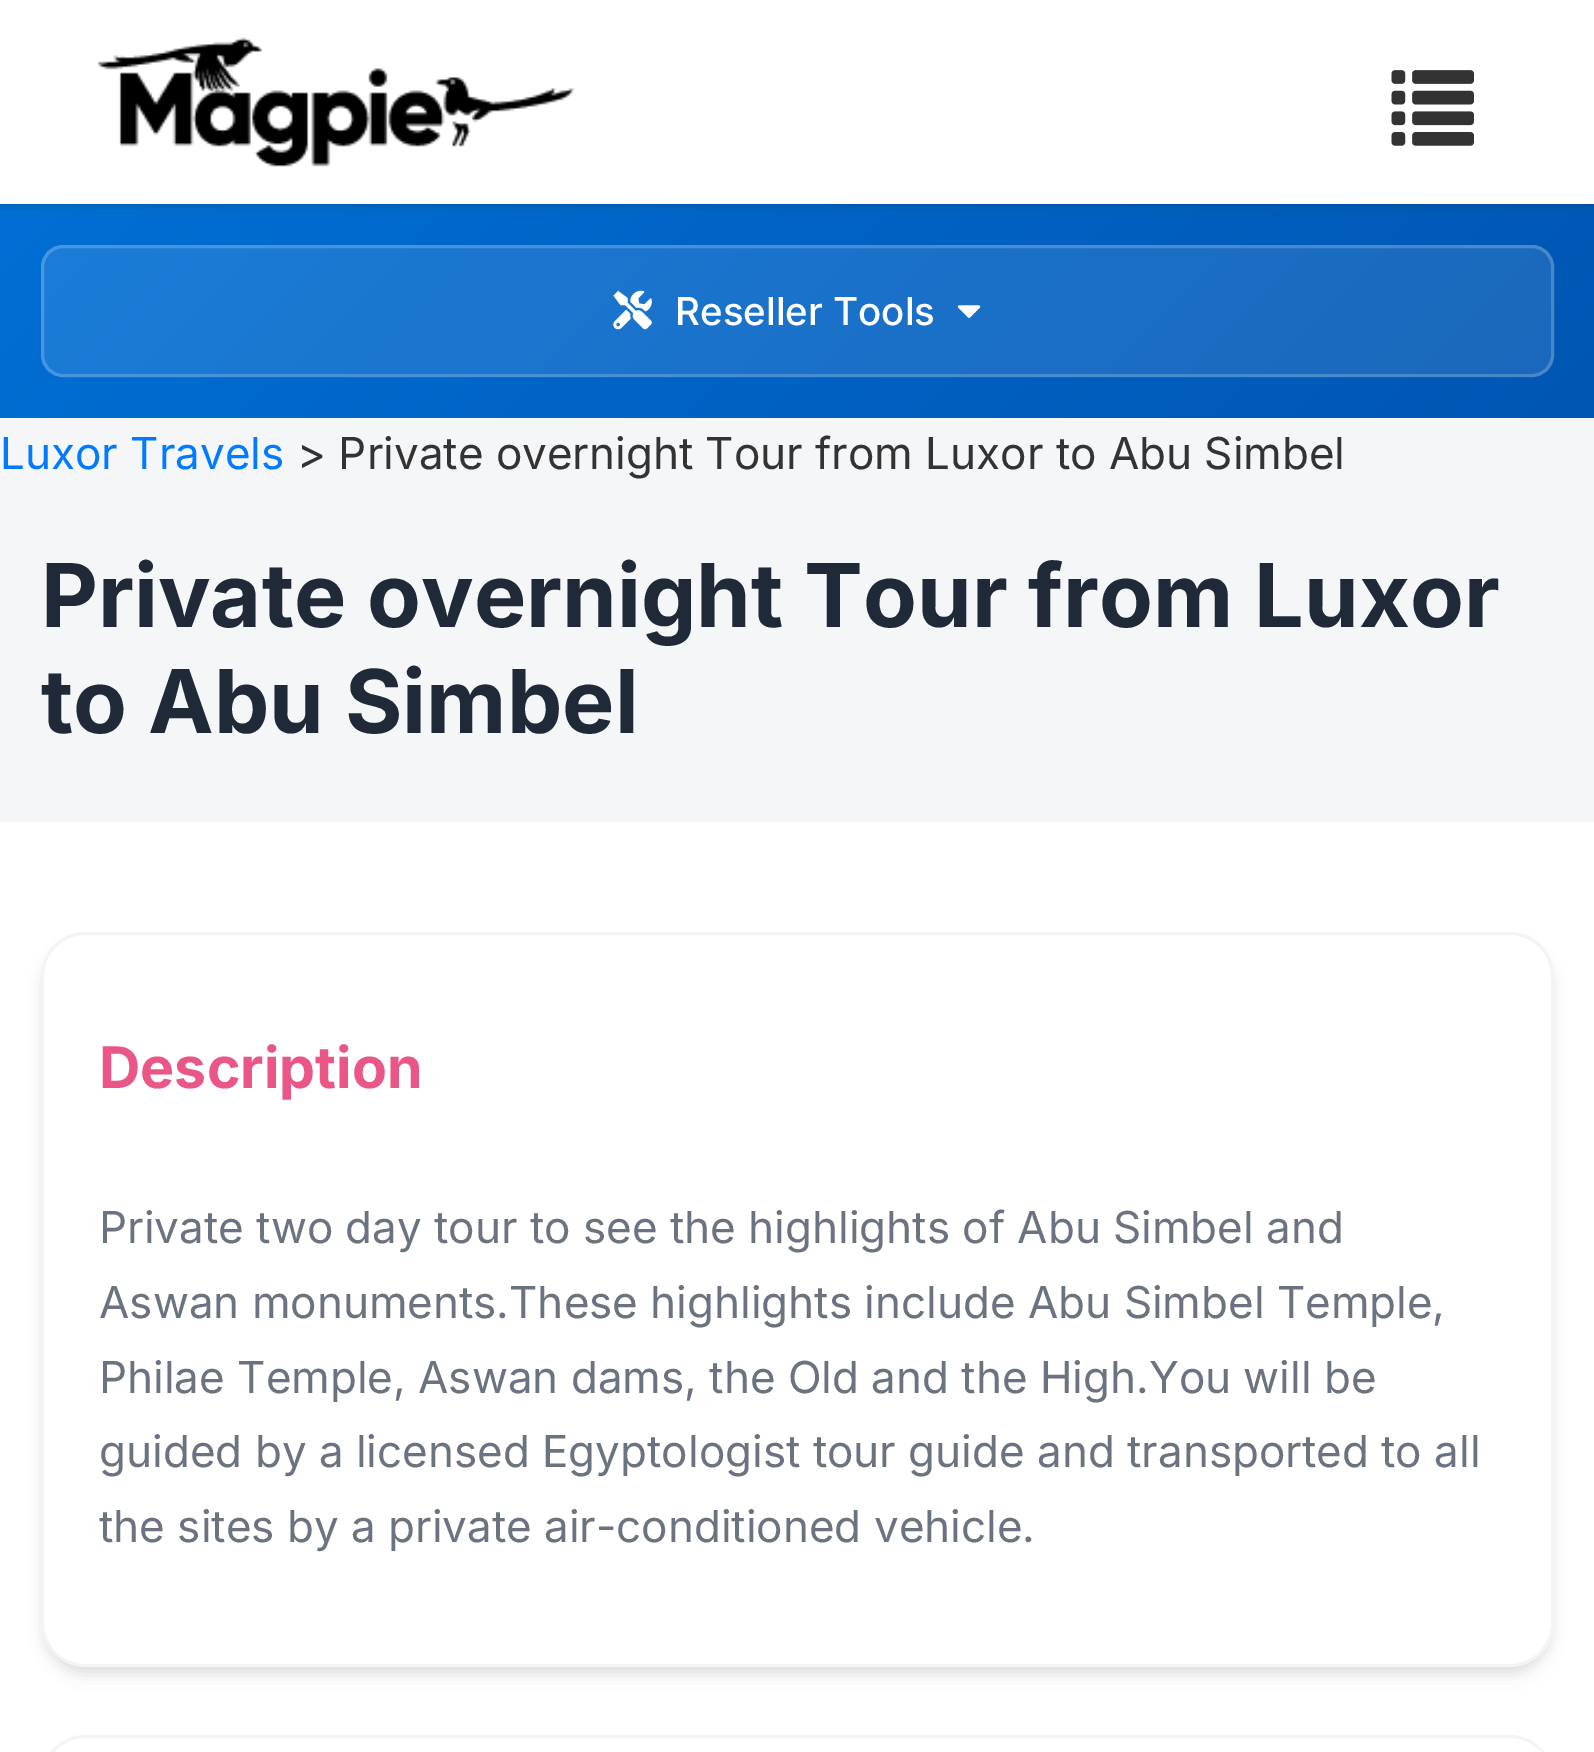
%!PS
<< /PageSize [1594 1752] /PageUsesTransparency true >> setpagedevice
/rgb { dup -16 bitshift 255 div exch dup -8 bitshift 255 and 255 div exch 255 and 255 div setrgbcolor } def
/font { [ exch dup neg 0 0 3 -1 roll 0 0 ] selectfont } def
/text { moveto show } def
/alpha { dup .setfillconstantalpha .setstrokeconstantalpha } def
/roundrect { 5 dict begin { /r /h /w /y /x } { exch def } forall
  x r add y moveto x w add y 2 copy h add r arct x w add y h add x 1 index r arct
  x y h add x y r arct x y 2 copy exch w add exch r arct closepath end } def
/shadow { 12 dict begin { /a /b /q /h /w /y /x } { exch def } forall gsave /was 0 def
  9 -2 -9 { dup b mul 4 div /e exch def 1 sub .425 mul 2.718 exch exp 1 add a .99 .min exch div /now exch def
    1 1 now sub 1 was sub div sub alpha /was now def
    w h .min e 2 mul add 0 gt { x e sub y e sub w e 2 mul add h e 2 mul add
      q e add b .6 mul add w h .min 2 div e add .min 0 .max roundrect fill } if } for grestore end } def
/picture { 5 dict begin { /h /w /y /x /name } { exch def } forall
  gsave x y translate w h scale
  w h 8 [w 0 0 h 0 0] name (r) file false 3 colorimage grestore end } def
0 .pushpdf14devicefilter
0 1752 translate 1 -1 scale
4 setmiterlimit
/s1 { /Inter-Medium 38.5 font 16#FFFFFF rgb } def
/s2 { /Inter-Regular 44 font 16#007BFF rgb } def
/s3 { /Inter-Regular 44 font 16#333333 rgb } def
/s4 { /Inter-Bold 88 font 16#1F2937 rgb } def
/s5 { /Inter-Bold 57.25 font 16#EA5686 rgb } def
/s6 { /Inter-Regular 44 font 16#6B7280 rgb } def
16#F4F6F8 rgb
0 0 1594 1752 rectfill
gsave 0 204 moveto 1594 204 lineto 1594 418 lineto 0 418 lineto closepath clip newpath
<< /ShadingType 2 /ColorSpace /DeviceRGB /Coords [345 -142 1250 763] /Extend [true true] /Function << /FunctionType 2 /Domain [0 1] /C0 [0 0.435 0.835] /C1 [0 0.337 0.702] /N 1 >> >> shfill grestore
16#000000 rgb
0 3 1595 203 0 3 0.06 shadow
0 3 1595 203 0 4 0.1 shadow
16#FFFFFF rgb
0 0 1594 204 rectfill
(pic1.raw) 97 37 478 130 picture
(pic2.raw) 1391 70 83 76 picture
0.1 alpha
41 245 1513 132 22 roundrect fill
0.2 alpha
3 setlinewidth
42.5 246.5 1510 129 20.5 roundrect stroke
1 alpha
(pic3.raw) 613 290 39 40 picture
s1
(Reseller Tools) 675 325 text
(pic4.raw) 957 305 24 13 picture
s2
(Luxor Travels) 0 469 text
s3
(> Private overnight Tour from Luxor to Abu Simbel) 297 469 text
s4
(Private overnight Tour from Luxor) 41 627 text
(to Abu Simbel) 41 733 text
16#FFFFFF rgb
0 822 1594 930 rectfill
16#000000 rgb
44 941 1507 728 41 5.5 0.06 shadow
44 946 1507 729 41 8 0.1 shadow
16#FFFFFF rgb
42.5 933.5 1510 732 42.5 roundrect gsave fill grestore
16#F3F4F6 rgb
stroke
s5
(Description) 99 1088 text
s6
(Private two day tour to see the highlights of Abu Simbel and) 99 1243 text
(Aswan monuments.These highlights include Abu Simbel Temple,) 99 1318 text
(Philae Temple, Aswan dams, the Old and the High.You will be) 99 1393 text
(guided by a licensed Egyptologist tour guide and transported to all) 99 1467 text
(the sites by a private air-conditioned vehicle.) 99 1542 text
16#F3F4F6 rgb
42.5 1736.5 1510 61 42.5 roundrect stroke
.poppdf14devicefilter showpage
